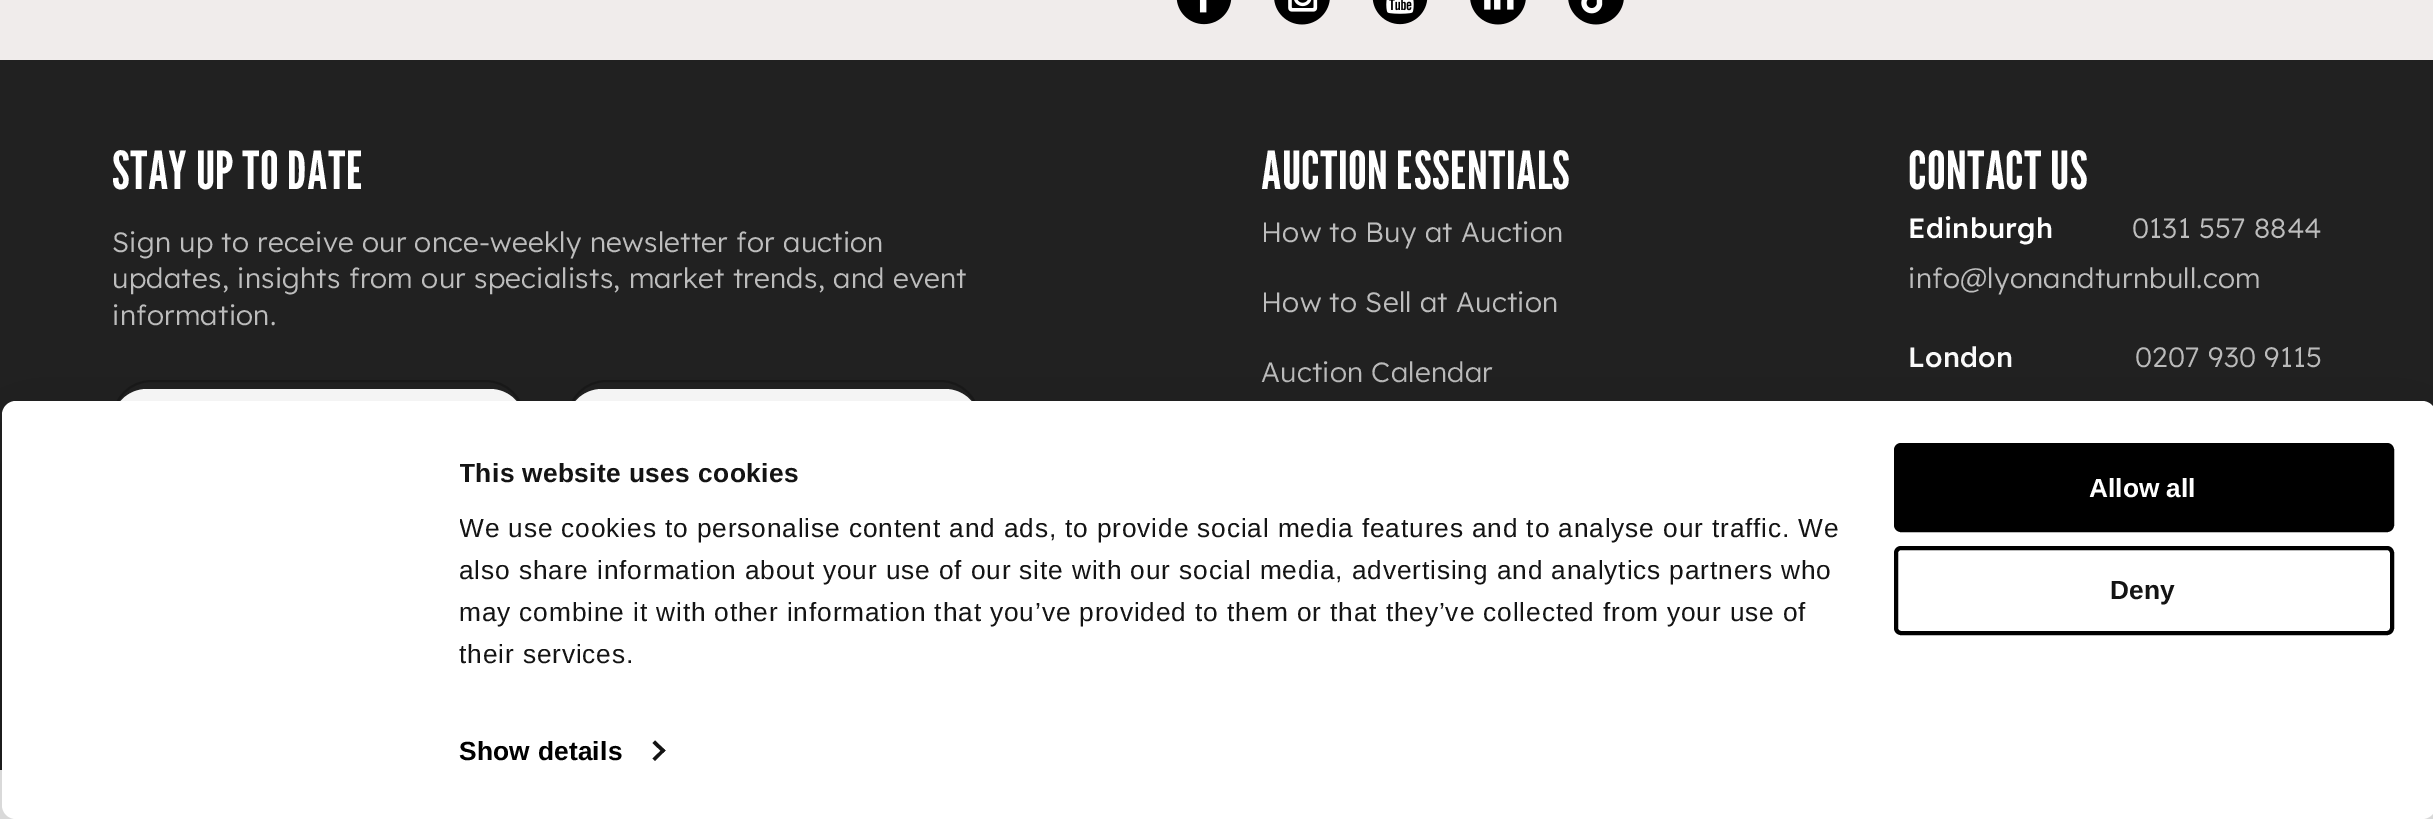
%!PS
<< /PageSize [2433 819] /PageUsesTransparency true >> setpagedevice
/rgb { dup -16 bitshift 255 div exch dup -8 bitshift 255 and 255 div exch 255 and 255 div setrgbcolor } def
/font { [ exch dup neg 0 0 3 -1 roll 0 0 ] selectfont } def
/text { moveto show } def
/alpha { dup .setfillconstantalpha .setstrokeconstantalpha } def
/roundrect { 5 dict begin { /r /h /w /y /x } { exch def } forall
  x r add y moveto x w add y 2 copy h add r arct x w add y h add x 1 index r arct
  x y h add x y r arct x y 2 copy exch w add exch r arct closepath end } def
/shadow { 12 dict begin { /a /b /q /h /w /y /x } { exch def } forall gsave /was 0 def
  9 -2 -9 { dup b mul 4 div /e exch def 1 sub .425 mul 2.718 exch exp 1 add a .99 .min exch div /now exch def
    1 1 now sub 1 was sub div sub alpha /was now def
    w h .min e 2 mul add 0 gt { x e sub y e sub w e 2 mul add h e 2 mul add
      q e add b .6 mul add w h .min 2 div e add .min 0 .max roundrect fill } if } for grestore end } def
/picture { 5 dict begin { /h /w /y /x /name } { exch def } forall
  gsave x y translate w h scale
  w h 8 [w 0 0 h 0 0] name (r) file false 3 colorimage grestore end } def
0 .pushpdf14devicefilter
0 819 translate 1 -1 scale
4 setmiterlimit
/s1 { /LiberationSans-Bold 26.25 font 16#FFFFFF rgb } def
/s2 { /LiberationSans-Bold 26.25 font 16#141414 rgb } def
16#FFFFFF rgb
0 0 2433 819 rectfill
16#F0ECEB rgb
0 0 2433 60 rectfill
(pic1.raw) 1176 0 56 25 picture
(pic2.raw) 1274 0 56 25 picture
(pic3.raw) 1372 0 56 25 picture
(pic4.raw) 1470 0 56 25 picture
(pic5.raw) 1568 0 56 25 picture
16#212121 rgb
0 60 2433 710 rectfill
/LeagueGothic-Regular 52.5 font
16#FFFFFF rgb
112 189 moveto 0.25 0 (STAY UP TO DATE) ashow
/Lexend-Light 28 font
16#BDBDBD rgb
112 252 moveto 0.25 0 (Sign up to receive our once-weekly newsletter for auction) ashow
112 288 moveto 0.25 0 (updates, insights from our specialists, market trends, and event) ashow
112 325 moveto 0.25 0 (information.) ashow
16#FFFFFF rgb
112 389 413 70 35 roundrect fill
0.23 alpha
16#000000 rgb
2 setlinewidth
113 381 411 77 38.5 roundrect stroke
1 alpha
16#FFFFFF rgb
567 389 413 70 35 roundrect fill
0.23 alpha
16#000000 rgb
568 381 411 77 38.5 roundrect stroke
/LeagueGothic-Regular 52.5 font
1 alpha
16#FFFFFF rgb
1261 189 moveto 0.25 0 (AUCTION ESSENTIALS) ashow
/Lexend-Light 28 font
16#BDBDBD rgb
1261 242 moveto 0.25 0 (How to Buy at Auction) ashow
1261 312 moveto 0.25 0 (How to Sell at Auction) ashow
1261 382 moveto 0.25 0 (Auction Calendar) ashow
/LeagueGothic-Regular 52.5 font
16#FFFFFF rgb
1908 189 moveto 0.25 0 (CONTACT US) ashow
/Lexend-Medium 28 font
1908 238 moveto 0.25 0 (Edinburgh) ashow
/Lexend-Light 28 font
16#BDBDBD rgb
2132 238 moveto 0.25 0 (0131 557 8844) ashow
1908 288 moveto 0.25 0 (info@lyonandturnbull.com) ashow
/Lexend-Medium 28 font
16#FFFFFF rgb
1908 367 moveto 0.25 0 (London) ashow
/Lexend-Light 28 font
16#BDBDBD rgb
2135 367 moveto 0.25 0 (0207 930 9115) ashow
gsave
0 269 moveto 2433 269 lineto 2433 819 lineto 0 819 lineto closepath 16 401 moveto 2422 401 lineto 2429.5 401 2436 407.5 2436 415 curveto 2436 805 lineto 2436 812.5 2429.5 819 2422 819 curveto 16 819 lineto 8.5 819 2 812.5 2 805 curveto 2 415 lineto 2 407.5 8.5 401 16 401 curveto closepath eoclip newpath
16#000000 rgb
2 453 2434 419 14 61 0.3 shadow
grestore
16#FFFFFF rgb
2 401 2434 418 14 roundrect fill
gsave
460 453 1423 223 rectclip
/LiberationSans-Bold 26.25 font
16#141414 rgb
459 482 moveto 0.4 0 (This website uses cookies) ashow
/LiberationSans-Regular 26.25 font
459 537 moveto 0.88 0 (We use cookies to personalise content and ads, to provide social media features and to analyse our traffic. We) ashow
grestore
/LiberationSans-Regular 26.25 font
16#141414 rgb
459 579 moveto 0.88 0 (also share information about your use of our site with our social media, advertising and analytics partners who) ashow
459 621 moveto 0.88 0 (may combine it with other information that you’ve provided to them or that they’ve collected from your use of) ashow
459 663 moveto 0.88 0 (their services.) ashow
/LiberationSans-Bold 26.25 font
16#000000 rgb
459 760 moveto 0.25 0 (Show details) ashow
16#141414 rgb
655 740.5 moveto 665.5 750.5 lineto 663 753 lineto 652.5 743 lineto closepath fill
663 748.5 moveto 665.5 750.5 lineto 655 761 lineto 652.5 758.5 lineto closepath fill
16#000000 rgb
1896 445 496 85 5 roundrect gsave fill grestore
4 setlinewidth
stroke
s1
(Allow all) 2089 497 text
16#000000 rgb
1896 548 496 85 5 roundrect stroke
s2
(Deny) 2110 599 text
.poppdf14devicefilter showpage
